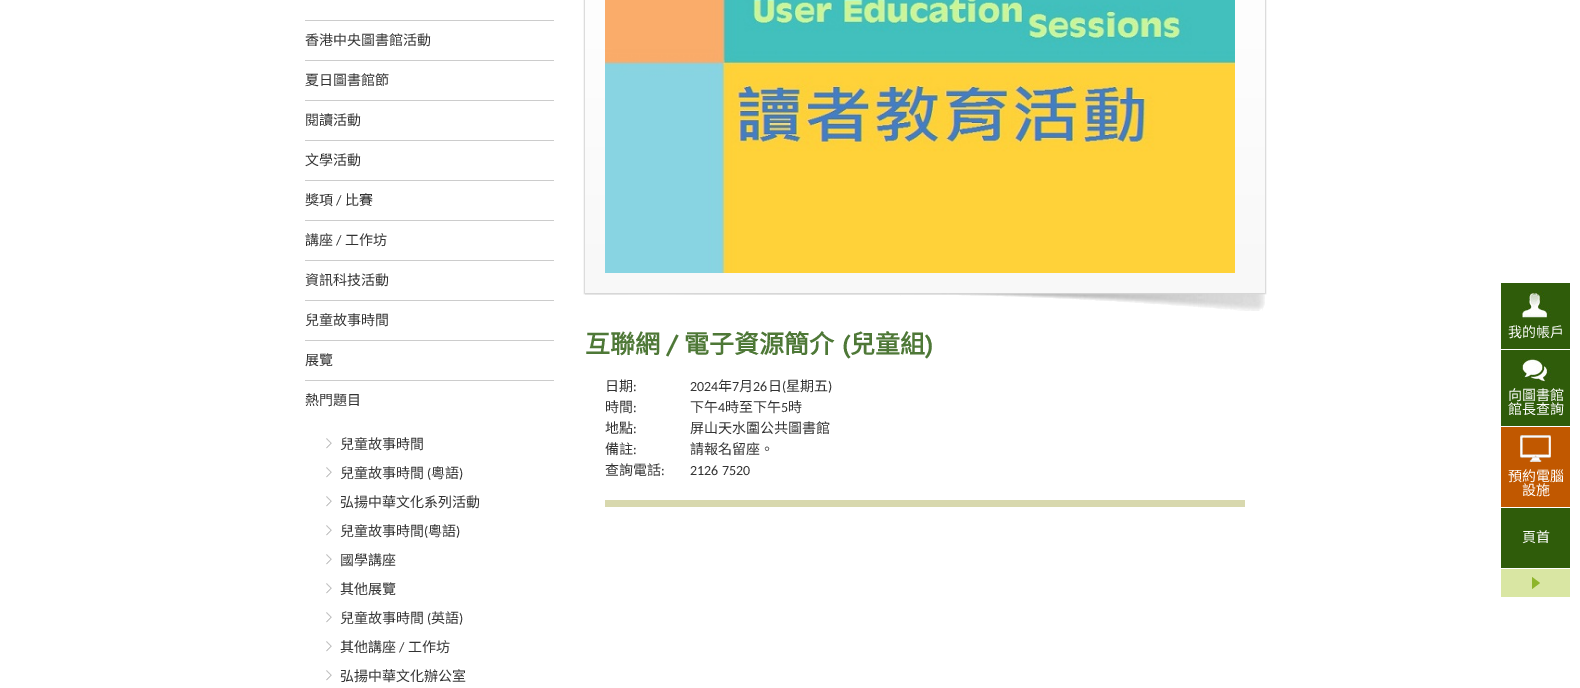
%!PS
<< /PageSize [1580 688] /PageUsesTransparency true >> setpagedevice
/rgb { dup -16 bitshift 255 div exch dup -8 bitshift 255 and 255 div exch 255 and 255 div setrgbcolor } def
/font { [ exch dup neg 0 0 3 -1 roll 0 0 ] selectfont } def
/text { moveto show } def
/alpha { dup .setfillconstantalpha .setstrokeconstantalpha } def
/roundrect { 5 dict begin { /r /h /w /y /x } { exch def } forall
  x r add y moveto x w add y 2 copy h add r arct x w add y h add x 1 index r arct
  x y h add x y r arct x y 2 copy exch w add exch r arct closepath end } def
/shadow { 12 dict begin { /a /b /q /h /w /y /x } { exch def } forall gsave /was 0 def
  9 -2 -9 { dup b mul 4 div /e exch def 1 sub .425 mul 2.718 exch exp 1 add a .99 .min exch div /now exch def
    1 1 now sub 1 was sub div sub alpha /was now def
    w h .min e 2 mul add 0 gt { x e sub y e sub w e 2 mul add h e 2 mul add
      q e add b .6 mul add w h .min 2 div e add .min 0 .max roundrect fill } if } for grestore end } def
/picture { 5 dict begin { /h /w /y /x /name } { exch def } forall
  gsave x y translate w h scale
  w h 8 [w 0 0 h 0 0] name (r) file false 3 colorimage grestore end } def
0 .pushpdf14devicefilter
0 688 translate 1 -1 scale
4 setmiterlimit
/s1 { /NotoSansCJKHK-Regular 14 font 16#333333 rgb } def
/s2 { /Carlito-Regular 14 font 16#333333 rgb } def
/s3 { /NotoSansCJKHK-Bold 25 font 16#4E7837 rgb } def
/s4 { /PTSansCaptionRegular-Bold 25 font 16#4E7837 rgb } def
/s5 { /NotoSansCJKHK-Regular 14 font 16#FFFFFF rgb } def
16#FFFFFF rgb
0 0 1580 688 rectfill
16#CCCCCC rgb
305 20 249 1 rectfill
305 60 249 1 rectfill
s1
(香港中央圖書館活動) 305 45 text
16#CCCCCC rgb
305 100 249 1 rectfill
s1
(夏日圖書館節) 305 85 text
16#CCCCCC rgb
305 140 249 1 rectfill
s1
(閱讀活動) 305 125 text
16#CCCCCC rgb
305 180 249 1 rectfill
s1
(文學活動) 305 165 text
16#CCCCCC rgb
305 220 249 1 rectfill
s1
(獎項) 305 205 text
s2
(/) 336 205 text
s1
(比賽) 345 205 text
16#CCCCCC rgb
305 260 249 1 rectfill
s1
(講座) 305 245 text
s2
(/) 336 245 text
s1
(工作坊) 345 245 text
16#CCCCCC rgb
305 300 249 1 rectfill
s1
(資訊科技活動) 305 285 text
16#CCCCCC rgb
305 340 249 1 rectfill
s1
(兒童故事時間) 305 325 text
16#CCCCCC rgb
305 380 249 1 rectfill
s1
(展覽) 305 365 text
(熱門題目) 305 405 text
(pic1.raw) 326 438 6 11 picture
(兒童故事時間) 340 449 text
(pic1.raw) 326 467 6 11 picture
(兒童故事時間) 340 478 text
s2
(\() 427 478 text
s1
(粵語) 431 478 text
s2
(\)) 459 478 text
(pic1.raw) 326 496 6 11 picture
s1
(弘揚中華文化系列活動) 340 507 text
(pic1.raw) 326 525 6 11 picture
(兒童故事時間) 340 536 text
s2
(\() 424 536 text
s1
(粵語) 428 536 text
s2
(\)) 456 536 text
(pic1.raw) 326 554 6 11 picture
s1
(國學講座) 340 565 text
(pic1.raw) 326 583 6 11 picture
(其他展覽) 340 594 text
(pic1.raw) 326 612 6 11 picture
(兒童故事時間) 340 623 text
s2
(\() 427 623 text
s1
(英語) 431 623 text
s2
(\)) 459 623 text
(pic1.raw) 326 641 6 11 picture
s1
(其他講座) 340 652 text
s2
(/) 399 652 text
s1
(工作坊) 408 652 text
(pic1.raw) 326 670 6 11 picture
(弘揚中華文化辦公室) 340 681 text
(pic2.raw) 585 293 680 18 picture
16#D6D6D6 rgb
584 -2 682 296 0 0.5 1 shadow
gsave 585 0 moveto 1265 0 lineto 1265 293 lineto 585 293 lineto closepath clip newpath
<< /ShadingType 2 /ColorSpace /DeviceRGB /Coords [925 -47 925 293] /Extend [true true] /Function << /FunctionType 2 /Domain [0 1] /C0 [1 1 1] /C1 [0.973 0.973 0.973] /N 1 >> >> shfill grestore
(pic3.raw) 605 0 630 273 picture
s3
(互聯網) 585 353 text
s4
(/) 667 353 text
s3
(電子資源簡介) 684 353 text
s4
(\() 842 353 text
s3
(兒童組) 850 353 text
s4
(\)) 925 353 text
16#D8D8AE rgb
605 500 640 7 rectfill
s1
(日期) 605 391 text
s2
(:) 633 391 text
(2024) 690 391 text
s1
(年) 718 391 text
s2
(7) 732 391 text
s1
(月) 739 391 text
s2
(26) 753 391 text
s1
(日) 768 391 text
s2
(\() 782 391 text
s1
(星期五) 786 391 text
s2
(\)) 828 391 text
s1
(時間) 605 412 text
s2
(:) 633 412 text
s1
(下午) 690 412 text
s2
(4) 718 412 text
s1
(時至下午) 725 412 text
s2
(5) 781 412 text
s1
(時) 788 412 text
(地點) 605 433 text
s2
(:) 633 433 text
s1
(屏山天水圍公共圖書館) 690 433 text
(備註) 605 454 text
s2
(:) 633 454 text
s1
(請報名留座。) 690 454 text
(查詢電話) 605 475 text
s2
(:) 661 475 text
(2126 7520) 690 475 text
16#2F5C0A rgb
1501 283 69 66 rectfill
(pic4.raw) 1520 291 31 29 picture
s5
(我的帳戶) 1508 337 text
16#2F5C0A rgb
1501 350 69 76 rectfill
(pic5.raw) 1520 358 31 24 picture
s5
(向圖書館) 1508 400 text
(館長查詢) 1508 414 text
16#C15800 rgb
1501 427 69 80 rectfill
(pic6.raw) 1520 435 31 27 picture
s5
(預約電腦) 1508 481 text
(設施) 1522 495 text
16#2F5C0A rgb
1501 508 69 60 rectfill
s5
(頁首) 1522 542 text
16#D9E6A3 rgb
1501 569 69 28 rectfill
16#8EB52A rgb
1532 589 moveto 1532 577 lineto 1540 583 lineto closepath fill
.poppdf14devicefilter showpage
